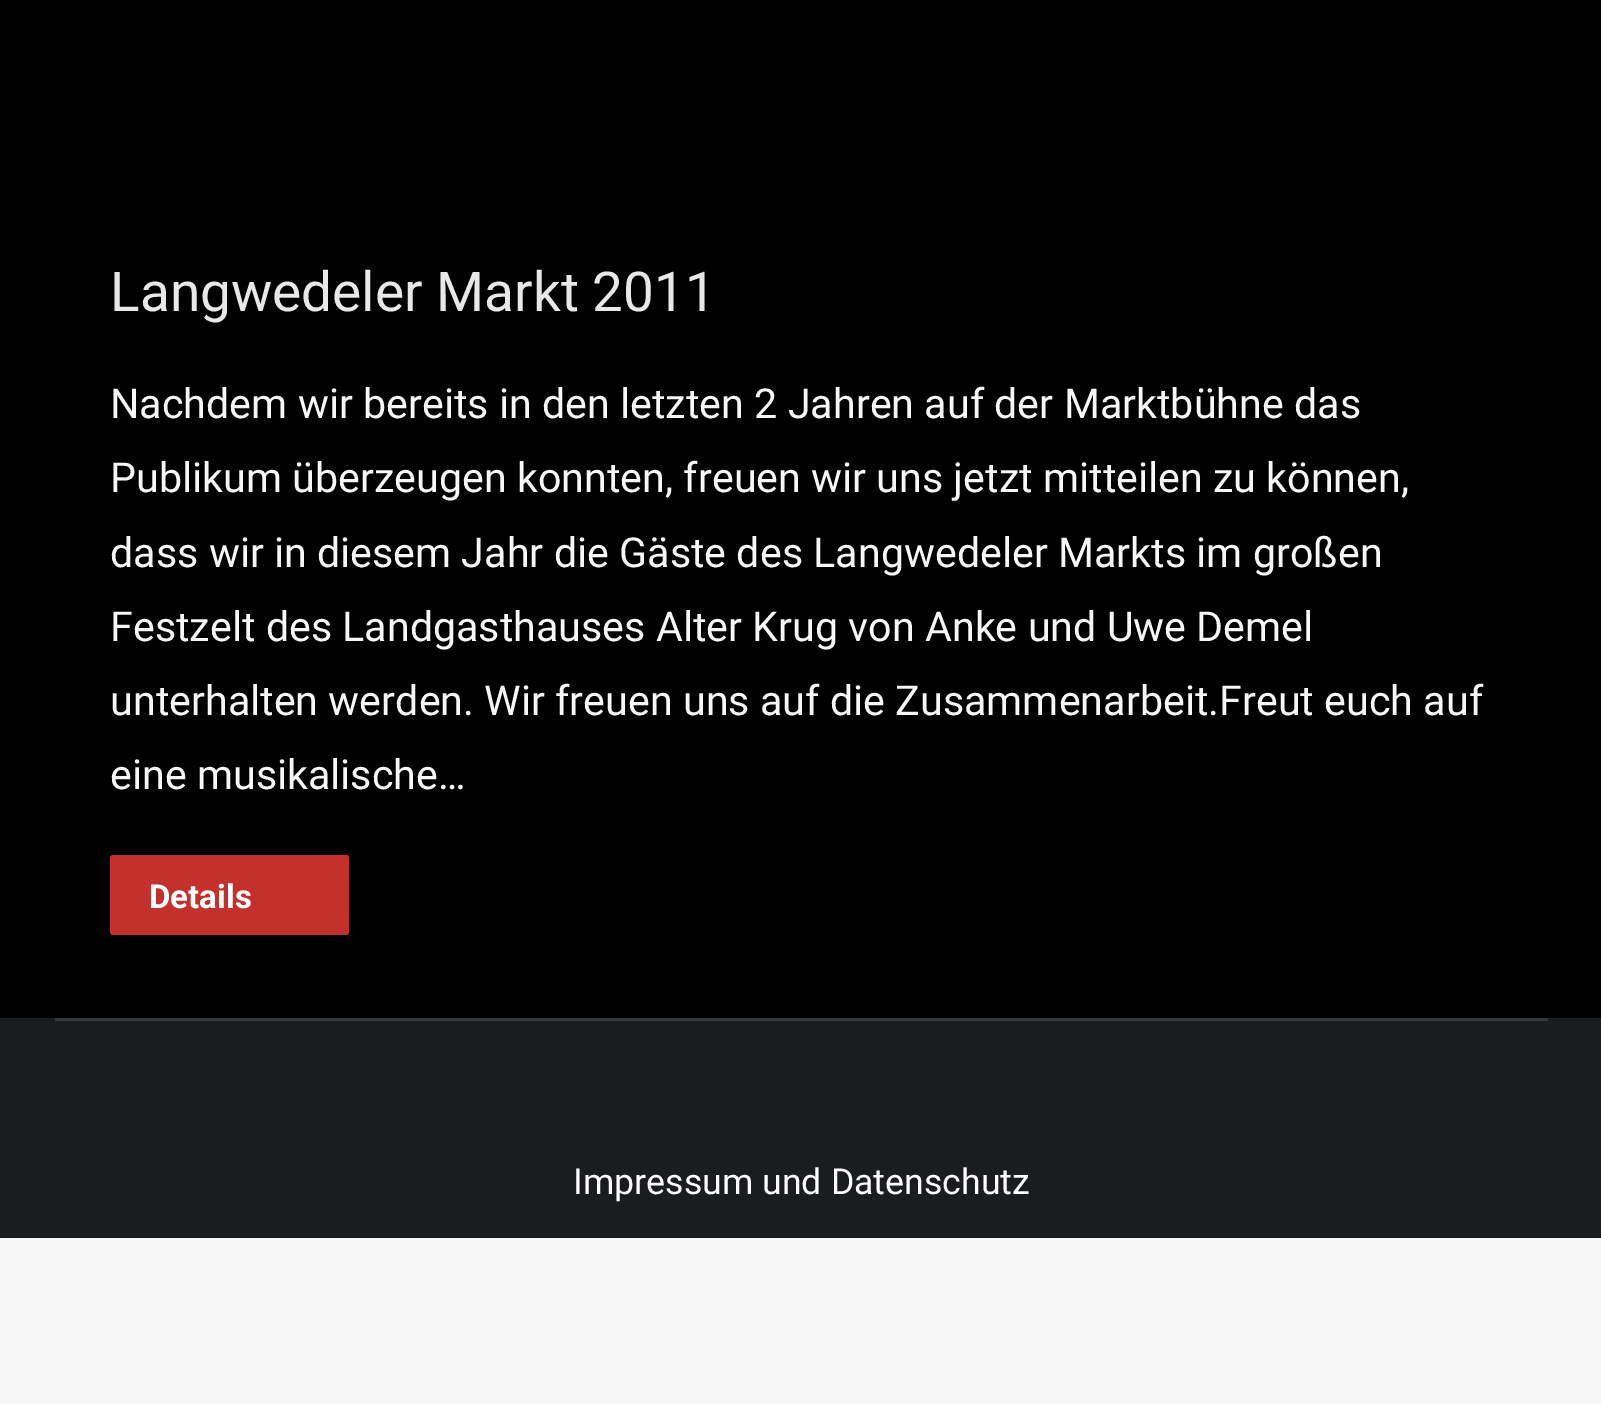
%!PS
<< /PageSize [1601 1404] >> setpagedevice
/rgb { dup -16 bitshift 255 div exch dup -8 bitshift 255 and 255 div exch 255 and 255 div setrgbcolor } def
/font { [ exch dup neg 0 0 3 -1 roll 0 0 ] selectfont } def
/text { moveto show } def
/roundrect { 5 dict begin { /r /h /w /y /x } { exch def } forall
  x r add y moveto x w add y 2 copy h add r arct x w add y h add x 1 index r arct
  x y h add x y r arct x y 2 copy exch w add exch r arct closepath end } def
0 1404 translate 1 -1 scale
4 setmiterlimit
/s1 { /Roboto-Regular 55 font 16#E8E8E8 rgb } def
/s2 { /Roboto-Regular 41.25 font 16#F7F7F7 rgb } def
/s3 { /Roboto-Bold 33 font 16#FFFFFF rgb } def
/s4 { /Roboto-Regular 35.75 font 16#FFFFFF rgb } def
16#F7F7F7 rgb
0 0 1601 1404 rectfill
16#000000 rgb
0 0 1601 1018 rectfill
s1
(Langwedeler Markt 2011) 110 311 text
s2
(Nachdem wir bereits in den letzten 2 Jahren auf der Marktbühne das) 110 418 text
(Publikum überzeugen konnten, freuen wir uns jetzt mitteilen zu können,) 110 492 text
(dass wir in diesem Jahr die Gäste des Langwedeler Markts im großen) 110 567 text
(Festzelt des Landgasthauses Alter Krug von Anke und Uwe Demel) 110 641 text
(unterhalten werden. Wir freuen uns auf die Zusammenarbeit.Freut euch auf) 110 715 text
(eine musikalische…) 110 789 text
16#C4302B rgb
110 855 239 80 3 roundrect fill
s3
(Details) 149 908 text
16#1A1C20 rgb
0 1018 1601 220 rectfill
16#35373B rgb
55 1018 1493 3 rectfill
s4
(Impressum und Datenschutz) 573 1194 text
showpage
